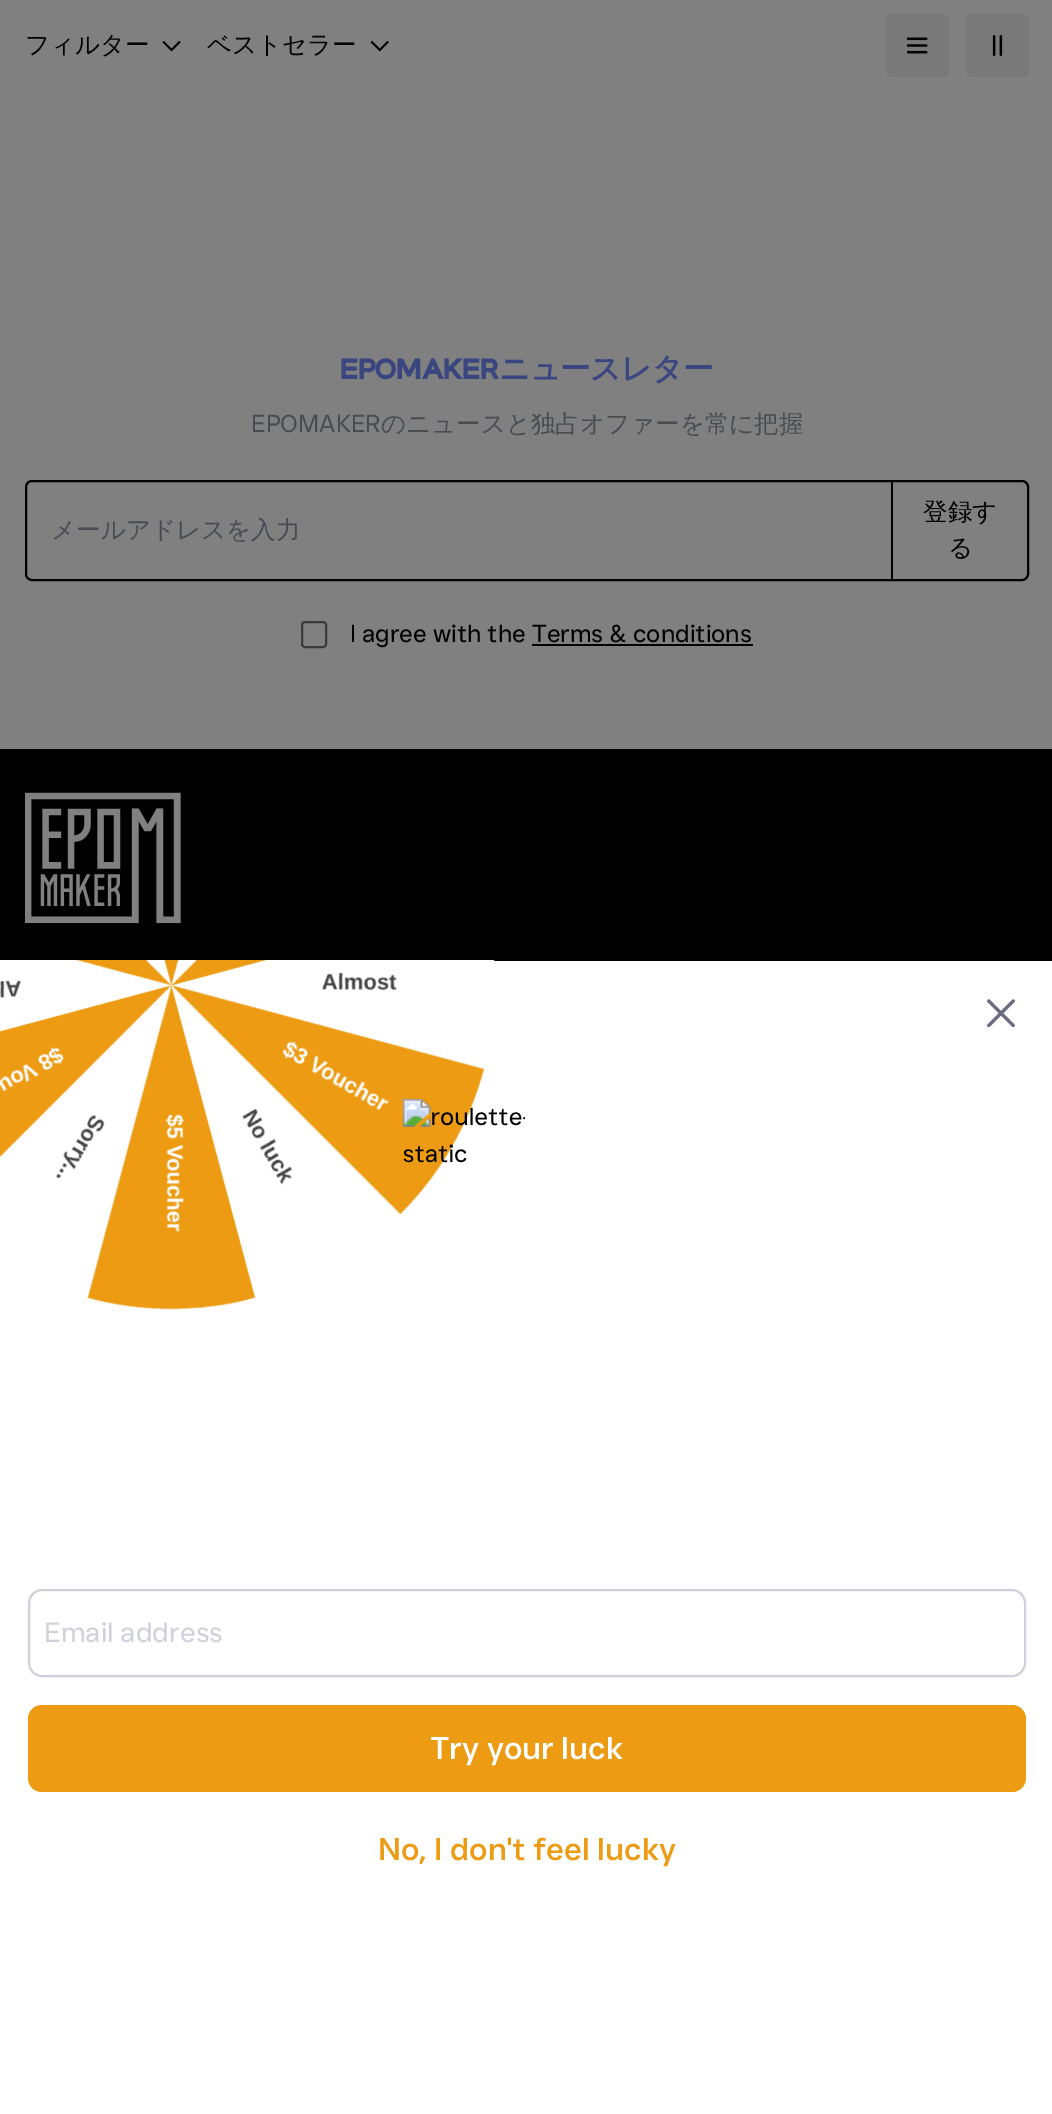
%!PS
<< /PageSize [1052 2114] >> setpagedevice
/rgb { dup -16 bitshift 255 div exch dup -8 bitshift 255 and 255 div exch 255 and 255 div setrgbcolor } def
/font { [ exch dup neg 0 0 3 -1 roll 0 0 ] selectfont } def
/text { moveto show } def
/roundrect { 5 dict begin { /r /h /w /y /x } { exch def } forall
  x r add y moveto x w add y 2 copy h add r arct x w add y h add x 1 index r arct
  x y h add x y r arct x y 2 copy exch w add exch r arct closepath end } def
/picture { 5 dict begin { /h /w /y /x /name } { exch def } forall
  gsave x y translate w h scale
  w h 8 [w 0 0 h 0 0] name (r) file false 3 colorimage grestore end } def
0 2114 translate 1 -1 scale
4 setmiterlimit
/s1 { /WenQuanYiZenHei-Medium 24.5 font 16#000000 rgb } def
/s2 { /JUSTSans-Regular 24.5 font 16#484B50 rgb } def
/s3 { /WenQuanYiZenHei-Medium 24.5 font 16#484B50 rgb } def
/s4 { /JUSTSans-Regular 24.5 font 16#000000 rgb } def
/s5 { /JUSTSans-Regular 28 font 16#D1D1DB rgb } def
/s6 { /JUSTSans-Medium 31.5 font 16#FFFFFF rgb } def
/s7 { /JUSTSans-Medium 31.5 font 16#EC9B13 rgb } def
16#808080 rgb
0 0 1052 2114 rectfill
s1
(フィルター) 25 53 text
(pic1.raw) 162 41 19 11 picture
(ベストセラー) 207 53 text
(pic2.raw) 370 41 19 11 picture
16#797979 rgb
886 14 63 63 5 roundrect fill
(pic3.raw) 907 37 21 17 picture
966 14 63 63 5 roundrect fill
(pic4.raw) 992 35 11 21 picture
/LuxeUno-Bold 30.5 font
16#3A4680 rgb
340 379 moveto -0.5 0 (EPOMAKER) ashow
/WenQuanYiZenHei-Bold 30.5 font
499 379 moveto -0.5 0 (ニュースレター) ashow
s2
(EPOMAKER) 251 432 text
s3
(のニュースと独占オファーを常に把握) 381 432 text
16#000000 rgb
2 setlinewidth
26 481 1002 99 6 roundrect stroke
s3
(メールアドレスを入力) 51 538 text
16#000000 rgb
891 481 2 98 rectfill
(登録す) 923 520 text
(る) 948 556 text
16#3B3B3B rgb
302 622 24 25 3 roundrect stroke
s4
(I agree with the Terms & conditions) 350 642 text
532 644 221 2 rectfill
0 749 1052 212 rectfill
(pic5.raw) 25 792 156 132 picture
16#FFFFFF rgb
0 961 1052 1153 rectfill
(pic6.raw) 0 960 495 350 picture
(pic7.raw) 403 1099 122 64 picture
(pic8.raw) 987 999 28 28 picture
16#D1D1DB rgb
29 1590 996 86 13 roundrect stroke
s5
(Email address) 44 1642 text
16#EC9B13 rgb
28 1705 998 87 14 roundrect fill
gsave
431 1705 192 87 rectclip
s6
(Try your luck) 430 1759 text
grestore
s7
(No, I don't feel lucky) 378 1860 text
showpage
